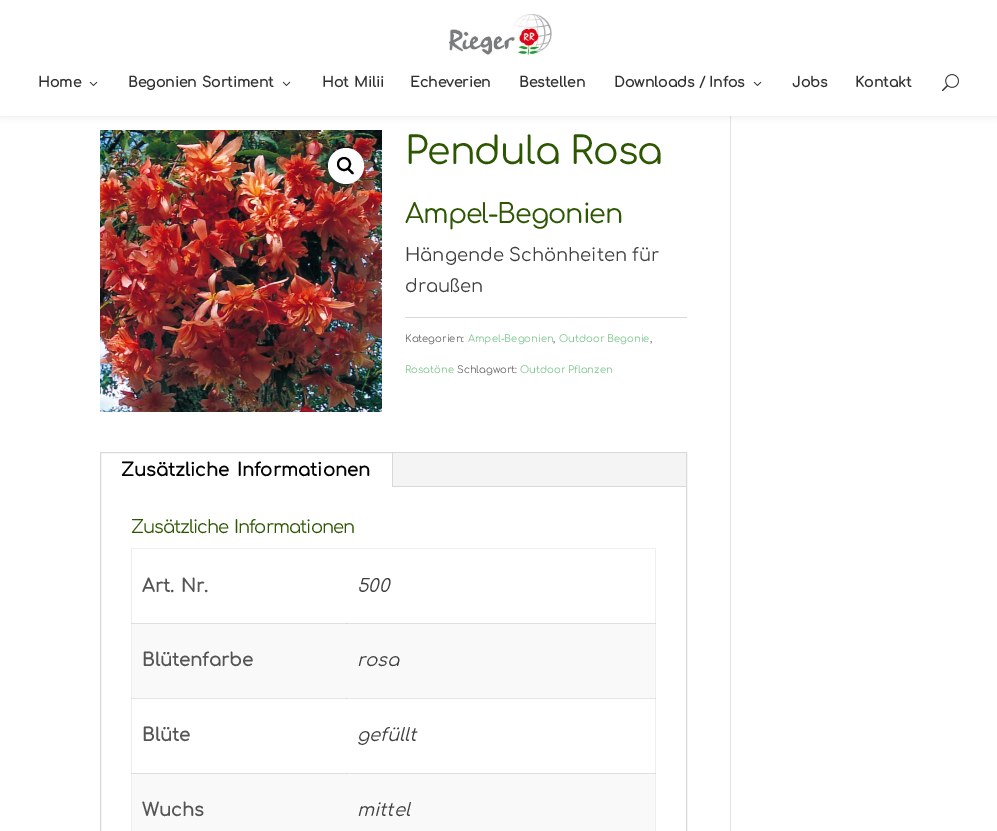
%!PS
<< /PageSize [997 831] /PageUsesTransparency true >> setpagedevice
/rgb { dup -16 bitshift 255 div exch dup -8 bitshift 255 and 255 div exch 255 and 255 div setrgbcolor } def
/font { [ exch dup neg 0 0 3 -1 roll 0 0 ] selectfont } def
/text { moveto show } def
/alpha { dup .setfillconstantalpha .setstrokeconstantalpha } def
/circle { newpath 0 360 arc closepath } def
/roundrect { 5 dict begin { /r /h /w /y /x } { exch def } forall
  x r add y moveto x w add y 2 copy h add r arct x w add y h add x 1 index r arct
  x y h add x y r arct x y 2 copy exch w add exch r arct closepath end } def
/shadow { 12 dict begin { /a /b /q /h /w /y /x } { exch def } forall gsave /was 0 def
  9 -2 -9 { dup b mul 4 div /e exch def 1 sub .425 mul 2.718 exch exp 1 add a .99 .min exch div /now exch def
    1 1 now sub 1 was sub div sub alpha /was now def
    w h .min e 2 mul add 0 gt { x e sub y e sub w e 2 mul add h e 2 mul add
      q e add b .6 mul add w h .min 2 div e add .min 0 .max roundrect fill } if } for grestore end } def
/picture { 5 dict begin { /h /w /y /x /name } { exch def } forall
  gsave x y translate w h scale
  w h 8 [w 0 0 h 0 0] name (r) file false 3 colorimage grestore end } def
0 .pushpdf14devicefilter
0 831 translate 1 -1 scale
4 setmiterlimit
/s1 { /Comfortaa-Bold 14 font 16#303030 rgb } def
/s2 { /Comfortaa-Regular 18 font 16#3F3F3F rgb } def
/s3 { /Comfortaa-Regular 10 font 16#666666 rgb } def
/s4 { /Comfortaa-Regular 10 font 16#7CC68D rgb } def
/s5 { /Comfortaa-Italic 18 font 16#3F3F3F rgb } def
/s6 { /Comfortaa-Bold 18 font 16#555555 rgb } def
16#FFFFFF rgb
0 0 997 831 rectfill
16#E6E6E6 rgb
131 698 525 1 rectfill
16#CFCFCF rgb
346 698 1 1 rectfill
16#E2E2E2 rgb
730 116 1 715 rectfill
16#000000 rgb
0 0 997 116 0 3.5 0.1 shadow
16#FFFFFF rgb
0 0 997 116 rectfill
(pic1.raw) 449 14 103 42 picture
s1
(Home) 38 87 text
(pic2.raw) 89 81 9 5 picture
128 87 moveto 1 0 32 (Begonien Sortiment) widthshow
(pic2.raw) 282 81 9 5 picture
322 87 moveto 1 0 32 (Hot Milii) widthshow
(Echeverien) 410 87 text
(Bestellen) 519 87 text
(Downloads / Infos) 614 87 text
(pic2.raw) 753 81 9 5 picture
(Jobs) 792 87 text
(Kontakt) 855 87 text
(pic3.raw) 942 74 17 18 picture
(pic4.raw) 100 130 282 282 picture
16#FFFFFF rgb
346 166 18 circle fill
16#000000 rgb
2 setlinewidth
344 164 6 circle stroke
347.5 168.5 moveto 349 167 350.5 170 351.5 170.5 curveto 352 171 354.5 173 353.5 174 curveto 352 175 350.5 172.5 350 172 curveto 349 171 346.5 169.5 347.5 168.5 curveto closepath fill
/Comfortaa-Regular 38 font
16#2C5600 rgb
405 164 moveto 1 0 32 -1 0 (Pendula Rosa) awidthshow
/Comfortaa-Regular 27 font
405 223 moveto -1 0 (Ampel-Begonien) ashow
s2
(Hängende Schönheiten für) 405 261 text
(draußen) 405 292 text
16#DADADA rgb
405 317 282 1 rectfill
s3
(Kategorien:) 405 342 text
s4
(Ampel-Begonien) 468 342 text
s3
(,) 553 342 text
s4
(Outdoor Begonie) 559 342 text
s3
(,) 650 342 text
s4
(Rosatöne) 405 373 text
s3
(Schlagwort:) 457 373 text
s4
(Outdoor Pflanzen) 520 373 text
16#D9D9D9 rgb
1 setlinewidth
100.5 452.5 586 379 rectstroke
16#F4F4F4 rgb
393 453 293 33 rectfill
16#D9D9D9 rgb
392 453 1 34 rectfill
/Comfortaa-Bold 18 font
16#000000 rgb
121 476 moveto 2 0 32 (Zusätzliche Informationen) widthshow
16#D9D9D9 rgb
393 486 293 1 rectfill
/Comfortaa-Regular 18 font
16#2C5600 rgb
131 533 moveto 1 0 32 -1 0 (Zusätzliche Informationen) awidthshow
16#EEEEEE rgb
131 548 525 1 rectfill
655 548 1 283 rectfill
16#D6D6D6 rgb
655 623 1 1 rectfill
655 698 1 1 rectfill
655 773 1 1 rectfill
16#E0E0E0 rgb
131 623 524 1 rectfill
131 773 524 1 rectfill
16#EEEEEE rgb
131 548 1 283 rectfill
16#D6D6D6 rgb
131 623 1 1 rectfill
131 698 1 1 rectfill
131 773 1 1 rectfill
/Comfortaa-Bold 18 font
16#555555 rgb
142 592 moveto 2 0 32 (Art. Nr.) widthshow
s5
(500) 357 592 text
16#F9F9F9 rgb
132 624 523 74 rectfill
s6
(Blütenfarbe) 142 666 text
16#CACACA rgb
346 623 1 1 rectfill
s5
(rosa) 357 666 text
s6
(Blüte) 142 741 text
s5
(gefüllt) 357 741 text
16#F9F9F9 rgb
132 774 523 57 rectfill
s6
(Wuchs) 142 816 text
16#CACACA rgb
346 773 1 1 rectfill
s5
(mittel) 357 816 text
.poppdf14devicefilter showpage
